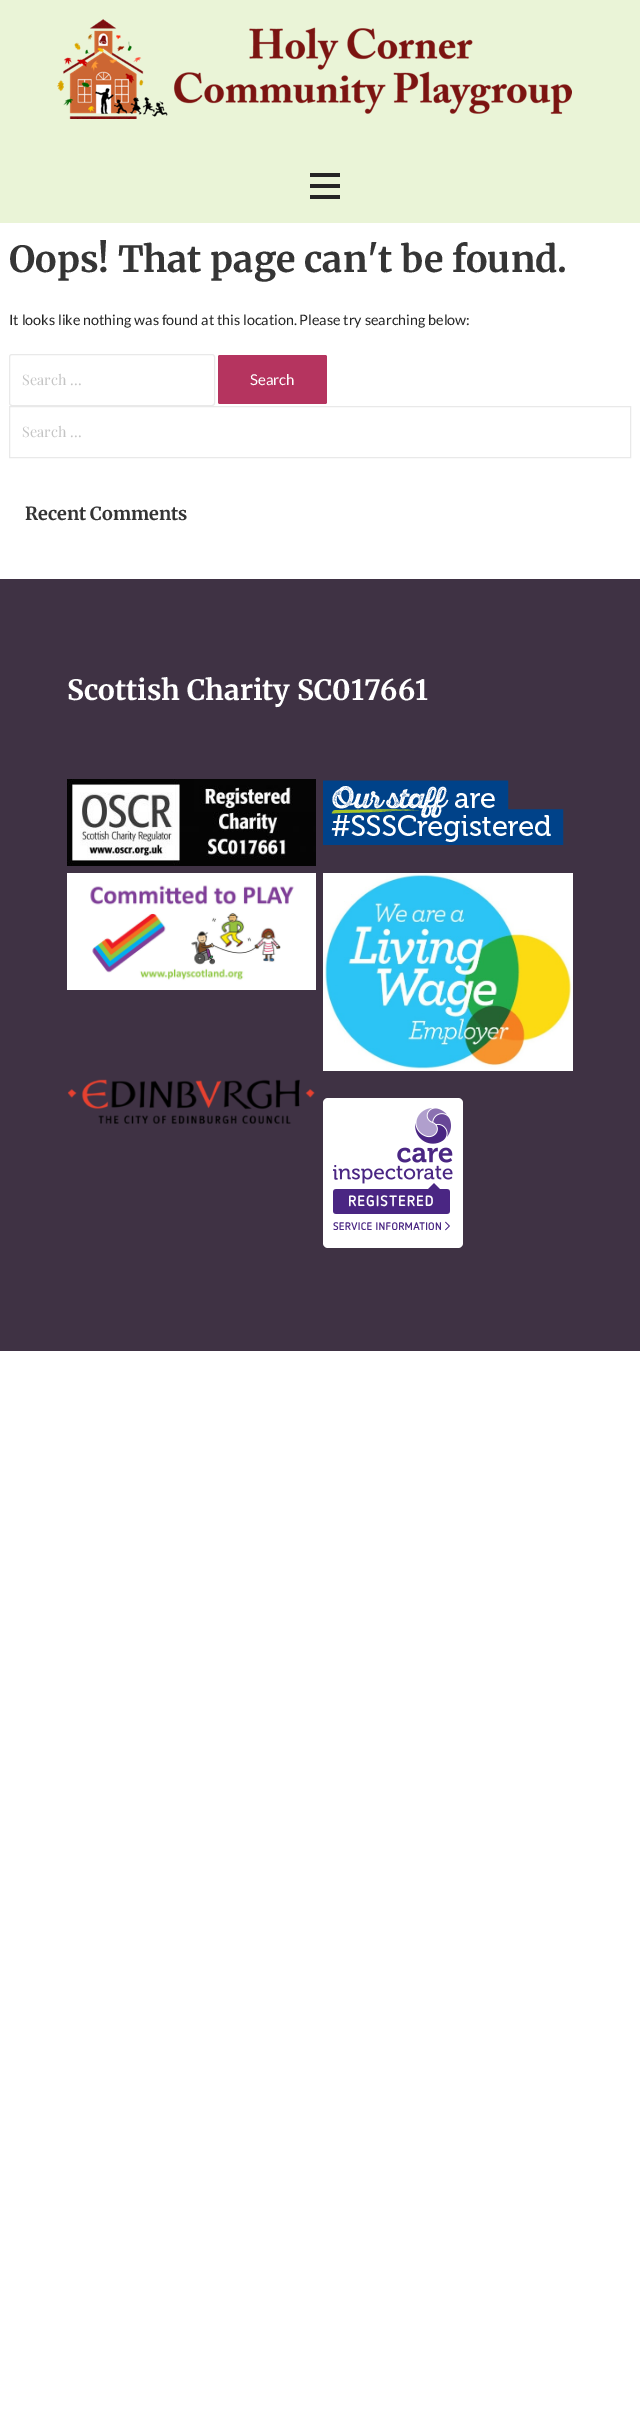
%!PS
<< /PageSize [640 2416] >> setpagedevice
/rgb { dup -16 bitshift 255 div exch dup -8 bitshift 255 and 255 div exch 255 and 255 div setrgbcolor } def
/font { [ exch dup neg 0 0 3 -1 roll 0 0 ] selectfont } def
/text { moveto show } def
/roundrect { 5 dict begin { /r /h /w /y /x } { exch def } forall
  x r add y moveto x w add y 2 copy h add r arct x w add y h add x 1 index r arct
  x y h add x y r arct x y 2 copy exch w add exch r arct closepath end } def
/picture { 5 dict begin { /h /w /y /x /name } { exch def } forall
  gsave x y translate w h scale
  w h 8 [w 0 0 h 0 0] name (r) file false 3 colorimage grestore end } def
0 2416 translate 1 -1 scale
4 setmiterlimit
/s1 { /Merriweather-Bold 36 font 16#353535 rgb } def
/s2 { /Lato-Regular 14.4 font 16#252525 rgb } def
/s3 { /PlayfairDisplay-Regular 14.4 font 16#C4C4C4 rgb } def
/s4 { /Lato-Regular 15 font 16#FFFFFF rgb } def
/s5 { /Merriweather-Bold 18 font 16#353535 rgb } def
/s6 { /Merriweather-Bold 28 font 16#FFFFFF rgb } def
16#FFFFFF rgb
0 0 640 2416 rectfill
16#EAF4D7 rgb
0 0 640 223 rectfill
(pic1.raw) 57 19 515 100 picture
16#252525 rgb
310 173 30 4 rectfill
310 184 30 4 rectfill
310 195 30 4 rectfill
s1
(Oops! That page can't be found.) 9 272 text
s2
(It looks like nothing was found at this location. Please try searching below:) 9 325 text
16#E9E9E9 rgb
9.5 354.5 205 51 2.5 roundrect stroke
s3
(Search …) 22 385 text
16#B5345F rgb
218 355 109 49 2 roundrect fill
s4
(Search) 250 385 text
16#E9E9E9 rgb
9.5 406.5 621 51 rectstroke
s3
(Search …) 22 437 text
s5
(Recent Comments) 25 520 text
16#3F3244 rgb
0 579 640 772 rectfill
s6
(Scottish Charity SC017661) 67 700 text
(pic2.raw) 67 779 249 87 picture
(pic3.raw) 323 780 241 65 picture
(pic4.raw) 67 873 249 117 picture
(pic5.raw) 323 873 250 198 picture
(pic6.raw) 67 1079 248 45 picture
323 1098 140 150 5 roundrect fill
(pic7.raw) 333 1108 120 123 picture
showpage
